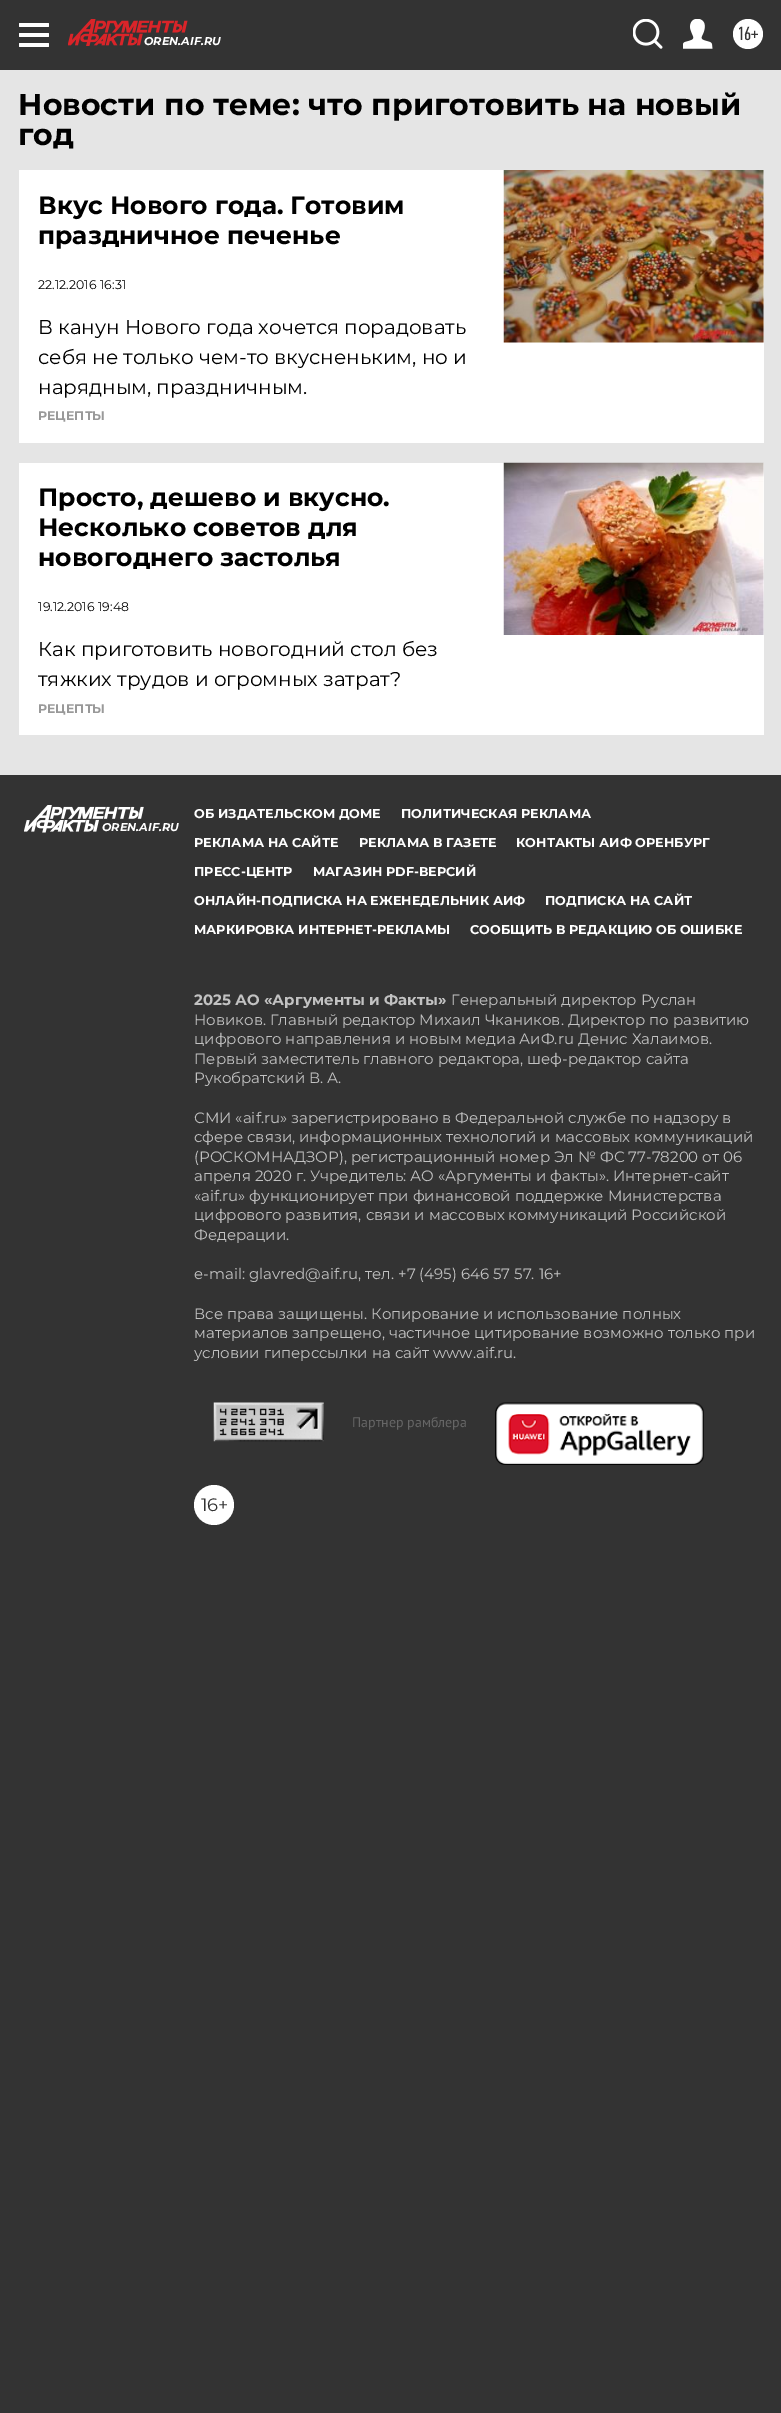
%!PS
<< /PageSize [781 2413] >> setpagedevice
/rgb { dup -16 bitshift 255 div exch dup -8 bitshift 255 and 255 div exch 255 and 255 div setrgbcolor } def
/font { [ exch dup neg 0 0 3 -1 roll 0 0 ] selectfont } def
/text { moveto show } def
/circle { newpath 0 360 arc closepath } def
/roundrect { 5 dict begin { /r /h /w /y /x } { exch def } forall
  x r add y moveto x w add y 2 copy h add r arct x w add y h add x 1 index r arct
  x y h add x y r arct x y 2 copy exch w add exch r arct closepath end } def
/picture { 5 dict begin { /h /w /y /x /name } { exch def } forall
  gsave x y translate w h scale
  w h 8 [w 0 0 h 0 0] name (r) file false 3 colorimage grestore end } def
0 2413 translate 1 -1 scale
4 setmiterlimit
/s1 { /Montserrat-BoldItalic 11.25 font 16#FFFFFF rgb } def
/s2 { /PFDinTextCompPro-Regular 19 font 16#333333 rgb } def
/s3 { /Montserrat-Bold 30 font 16#000000 rgb } def
/s4 { /Montserrat-Bold 25 font 16#000000 rgb } def
/s5 { /Montserrat-Regular 12.5 font 16#000000 rgb } def
/s6 { /Montserrat-Regular 20 font 16#000000 rgb } def
/s7 { /Montserrat-Bold 12.5 font 16#999999 rgb } def
/s8 { /Montserrat-Bold 12.75 font 16#FFFFFF rgb } def
/s9 { /Montserrat-Bold 15 font 16#C2C2C2 rgb } def
/s10 { /Montserrat-Regular 15 font 16#C2C2C2 rgb } def
/s11 { /PTSans-Regular 14 font 16#666666 rgb } def
/s12 { /Montserrat-Regular 18 font 16#333333 rgb } def
16#333333 rgb
0 0 781 2413 rectfill
16#E5E5E5 rgb
0 70 781 705 rectfill
16#FFFFFF rgb
19 23 30 4 1 roundrect fill
19 33 30 4 1 roundrect fill
19 43 30 4 1 roundrect fill
(pic1.raw) 68 19 120 27 picture
s1
(OREN.AIF.RU) 144 45 text
(pic2.raw) 633 19 30 30 picture
(pic3.raw) 683 19 30 30 picture
748 34 15 circle fill
s2
(16+) 737 40 text
s3
(Новости по теме: что приготовить на новый) 18 115 text
(год) 18 145 text
16#FFFFFF rgb
19 170 745 273 rectfill
s4
(Вкус Нового года. Готовим) 38 214 text
(праздничное печенье) 38 244 text
s5
(22.12.2016 16:31) 38 289 text
s6
(В канун Нового года хочется порадовать) 38 334 text
(себя не только чем-то вкусненьким, но и) 38 364 text
(нарядным, праздничным.) 38 394 text
(pic4.raw) 503 170 261 173 picture
s7
(РЕЦЕПТЫ) 38 420 text
16#FFFFFF rgb
19 463 745 272 rectfill
s4
(Просто, дешево и вкусно.) 38 506 text
(Несколько советов для) 38 536 text
(новогоднего застолья) 38 566 text
s5
(19.12.2016 19:48) 38 611 text
s6
(Как приготовить новогодний стол без) 38 656 text
(тяжких трудов и огромных затрат?) 38 686 text
(pic5.raw) 503 462 261 173 picture
s7
(РЕЦЕПТЫ) 38 713 text
(pic6.raw) 24 805 120 28 picture
s1
(OREN.AIF.RU) 102 831 text
s8
(ОБ ИЗДАТЕЛЬСКОМ ДОМЕ) 194 818 text
(ПОЛИТИЧЕСКАЯ РЕКЛАМА) 401 818 text
(РЕКЛАМА НА САЙТЕ) 194 847 text
(РЕКЛАМА В ГАЗЕТЕ) 359 847 text
(КОНТАКТЫ АИФ ОРЕНБУРГ) 516 847 text
(ПРЕСС-ЦЕНТР) 194 876 text
(МАГАЗИН PDF-ВЕРСИЙ) 313 876 text
(ОНЛАЙН-ПОДПИСКА НА ЕЖЕНЕДЕЛЬНИК АИФ) 194 905 text
(ПОДПИСКА НА САЙТ) 545 905 text
(МАРКИРОВКА ИНТЕРНЕТ-РЕКЛАМЫ) 194 934 text
(СООБЩИТЬ В РЕДАКЦИЮ ОБ ОШИБКЕ) 470 934 text
s9
(2025 АО «Аргументы и Факты») 194 1005 text
s10
(Генеральный директор Руслан) 451 1005 text
(Новиков. Главный редактор Михаил Чкаников. Директор по развитию) 194 1025 text
(цифрового направления и новым медиа АиФ.ru Денис Халаимов.) 194 1044 text
(Первый заместитель главного редактора, шеф-редактор сайта) 194 1064 text
(Рукобратский В. А.) 194 1083 text
(СМИ «aif.ru» зарегистрировано в Федеральной службе по надзору в) 194 1123 text
(сфере связи, информационных технологий и массовых коммуникаций) 194 1142 text
(\(РОСКОМНАДЗОР\), регистрационный номер Эл № ФС 77-78200 от 06) 194 1162 text
(апреля 2020 г. Учредитель: АО «Аргументы и факты». Интернет-сайт) 194 1181 text
(«aif.ru» функционирует при финансовой поддержке Министерства) 194 1201 text
(цифрового развития, связи и массовых коммуникаций Российской) 194 1220 text
(Федерации.) 194 1240 text
(e-mail: glavred@aif.ru, тел. +7 \(495\) 646 57 57. 16+) 194 1279 text
(Все права защищены. Копирование и использование полных) 194 1319 text
(материалов запрещено, частичное цитирование возможно только при) 194 1338 text
(условии гиперссылки на сайт www.aif.ru.) 194 1358 text
(pic7.raw) 213 1402 111 40 picture
s11
(Партнер рамблера) 352 1427 text
(pic8.raw) 495 1402 209 63 picture
16#FFFFFF rgb
214 1505 20 circle fill
s12
(16+) 201 1511 text
showpage
